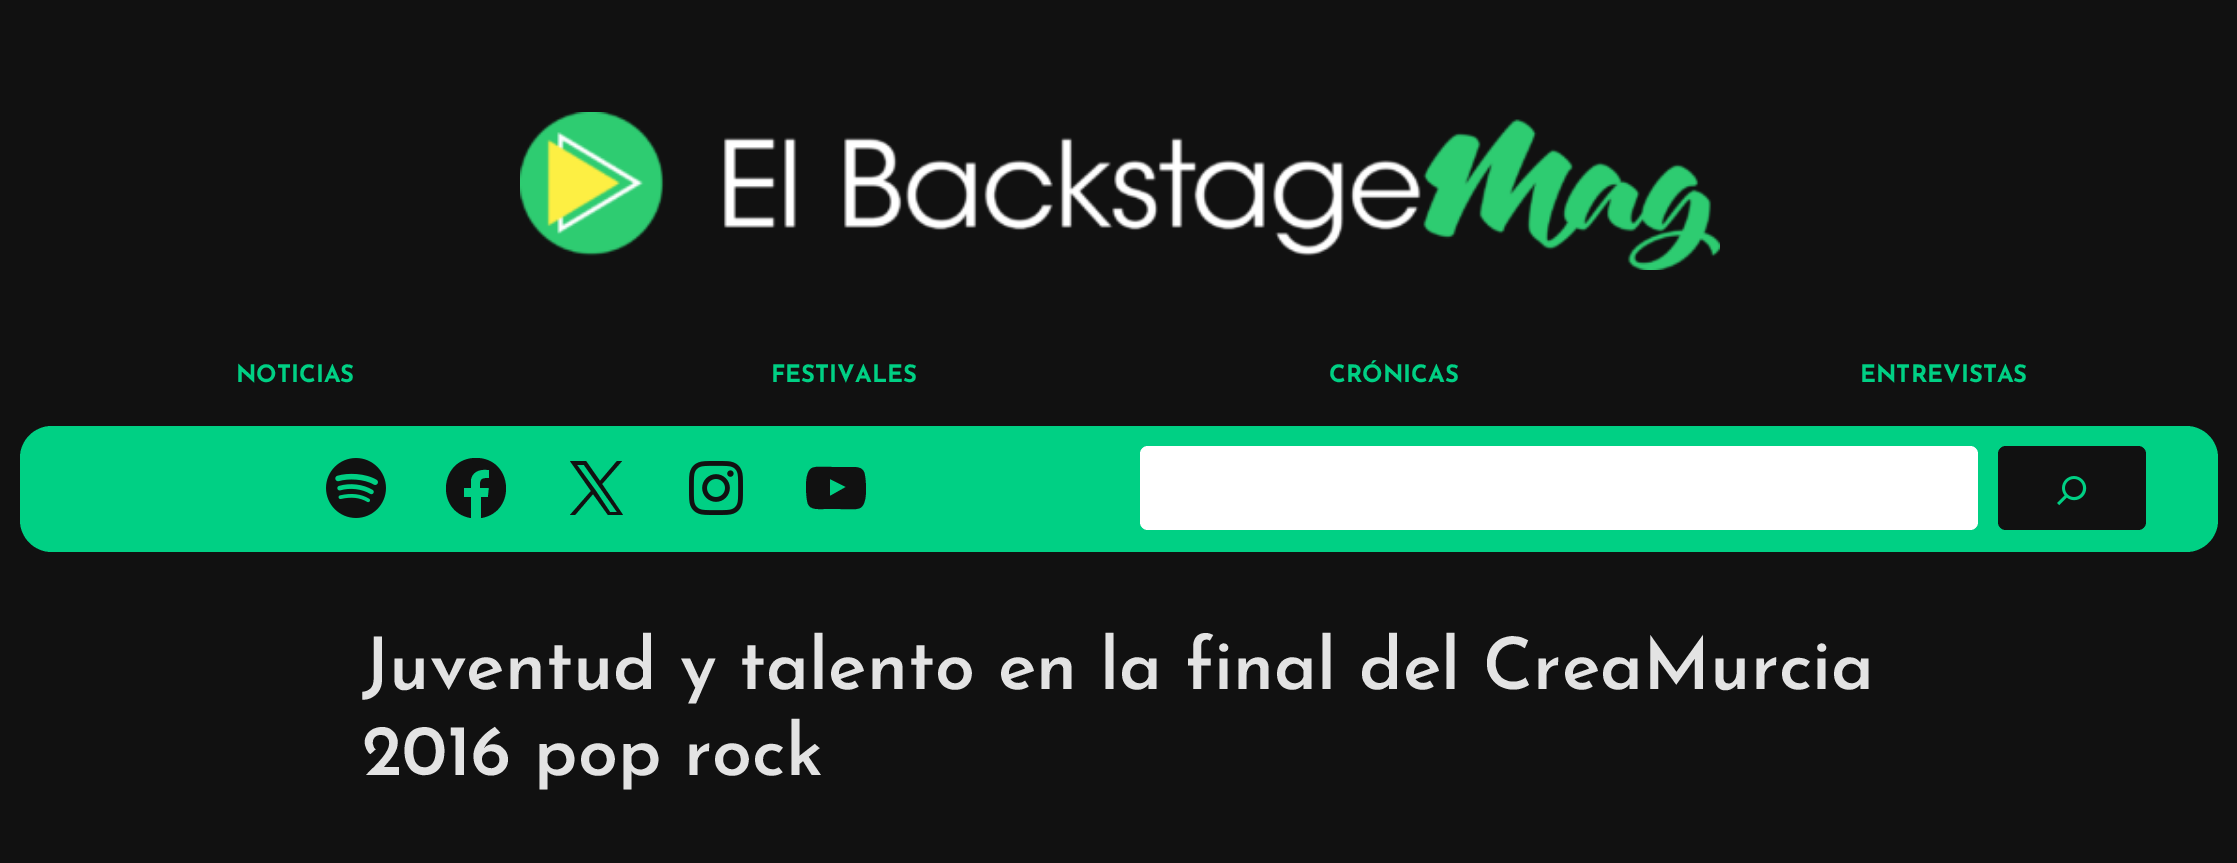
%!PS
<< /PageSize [2237 863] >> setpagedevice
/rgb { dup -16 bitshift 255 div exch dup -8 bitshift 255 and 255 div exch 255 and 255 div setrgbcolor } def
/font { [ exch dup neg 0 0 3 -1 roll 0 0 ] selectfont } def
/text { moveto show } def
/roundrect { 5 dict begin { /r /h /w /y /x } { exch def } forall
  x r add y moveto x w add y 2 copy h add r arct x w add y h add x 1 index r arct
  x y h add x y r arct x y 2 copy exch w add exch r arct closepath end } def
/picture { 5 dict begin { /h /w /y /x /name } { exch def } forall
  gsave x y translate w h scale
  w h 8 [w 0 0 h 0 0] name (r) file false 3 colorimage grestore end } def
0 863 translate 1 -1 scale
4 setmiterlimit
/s1 { /JosefinSans-Bold 24 font 16#00D084 rgb } def
/s2 { /JosefinSans-SemiBold 72 font 16#E3E3E3 rgb } def
16#111111 rgb
0 0 2237 863 rectfill
(pic1.raw) 520 112 1200 158 picture
s1
(NOTICIAS) 236 382 text
(FESTIVALES) 771 382 text
(CRÓNICAS) 1329 382 text
(ENTREVISTAS) 1860 382 text
20 426 2198 126 32 roundrect fill
(pic2.raw) 326 458 60 60 picture
16#111111 rgb
476 458 moveto 439 458 435 512 471 518 curveto 471 497 lineto 464 497 lineto 464 488 lineto 471 488 lineto 471 479 lineto 473 470 482 469 489 470 curveto 489 478 lineto 480 478 480 480 480 488 curveto 489 488 lineto 488 497 lineto 481 497 lineto 481 518 lineto 517 512 513 458 476 458 curveto closepath fill
602 484 moveto 622 461 lineto 617 461 lineto 600 481 lineto 586 461 lineto 570 461 lineto 591 491 lineto 570 515 lineto 575 515 lineto 593 494 lineto 608 515 lineto 623 515 lineto closepath 596 491 moveto 577 465 lineto 584 465 lineto 617 512 lineto 610 512 lineto closepath fill
(pic3.raw) 689 461 54 54 picture
865 476 moveto 864 467 858 467 850 467 curveto 832 467 lineto 826 467 816 466 812 468 curveto 804 472 806 493 807 500 curveto 808 510 816 509 824 509 curveto 840 509 lineto 846 509 856 510 860 508 curveto 868 504 866 483 865 476 curveto closepath 830 496 moveto 830 479 lineto 846 487 lineto closepath fill
16#FFFFFF rgb
1140 446 838 84 8 roundrect fill
16#111111 rgb
1998 446 148 84 8 roundrect fill
(pic4.raw) 2057 476 30 30 picture
s2
(Juventud y talento en la final del CreaMurcia) 362 689 text
(2016 pop rock) 362 775 text
showpage
